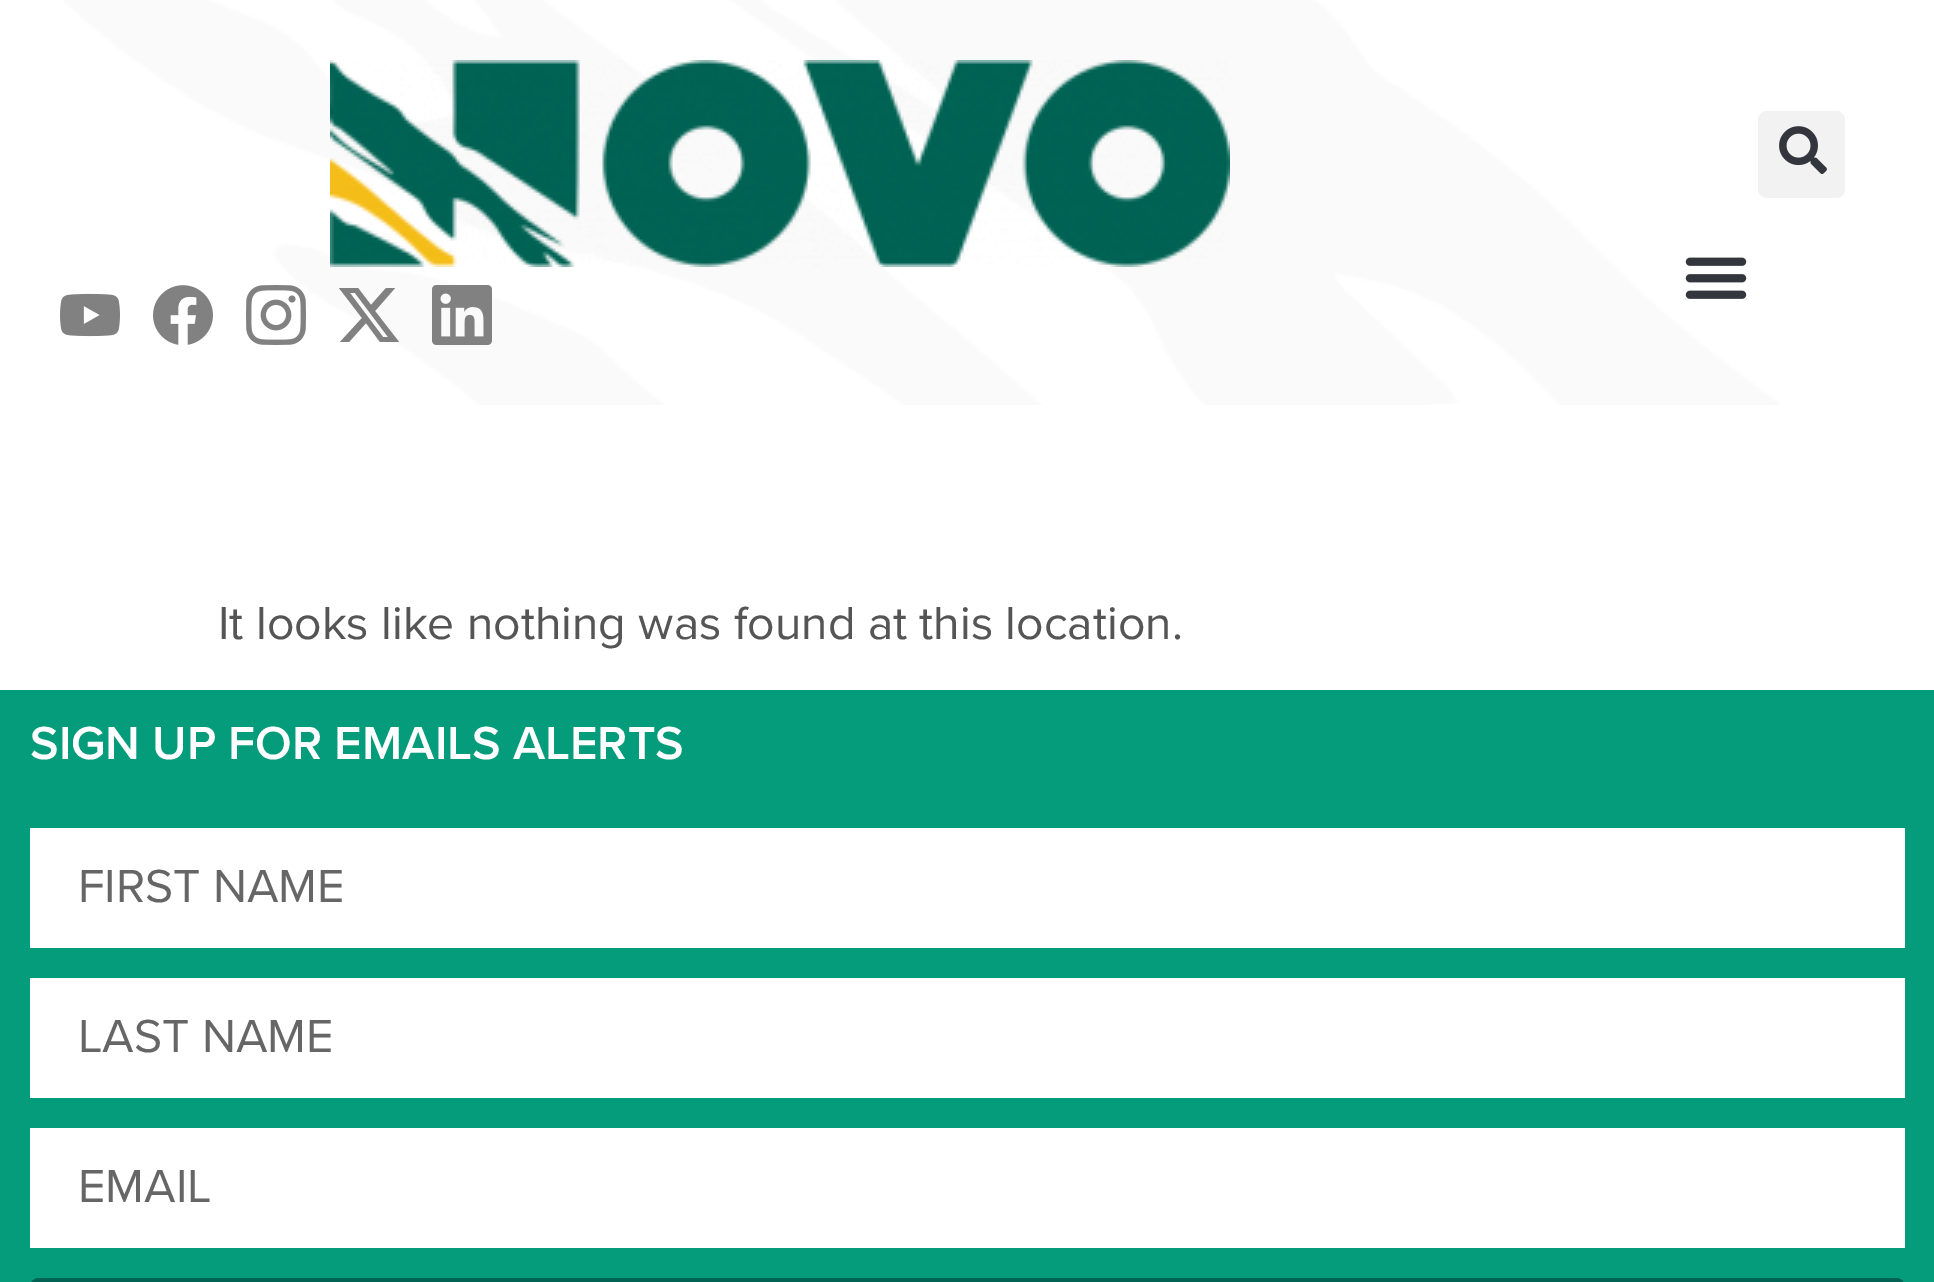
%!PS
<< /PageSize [1934 1282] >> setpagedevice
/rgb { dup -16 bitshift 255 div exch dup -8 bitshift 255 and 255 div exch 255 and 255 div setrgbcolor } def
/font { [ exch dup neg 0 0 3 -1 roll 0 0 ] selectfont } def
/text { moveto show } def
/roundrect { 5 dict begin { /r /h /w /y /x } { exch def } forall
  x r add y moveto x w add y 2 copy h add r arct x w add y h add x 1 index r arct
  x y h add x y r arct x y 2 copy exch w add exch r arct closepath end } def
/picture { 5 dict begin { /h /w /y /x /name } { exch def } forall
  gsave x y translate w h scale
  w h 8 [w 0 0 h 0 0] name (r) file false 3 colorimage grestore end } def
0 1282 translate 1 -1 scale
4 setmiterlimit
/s1 { /ProximaNova-Regular 48 font 16#555555 rgb } def
/s2 { /ProximaNova-SemiBold 48 font 16#FFFFFF rgb } def
/s3 { /ProximaNova-Regular 48 font 16#666666 rgb } def
16#FFFFFF rgb
0 0 1934 1282 rectfill
(pic1.raw) 64 0 1715 405 picture
(pic2.raw) 330 60 900 207 picture
(pic3.raw) 60 293 60 44 picture
(pic4.raw) 153 285 60 60 picture
(pic5.raw) 246 285 60 60 picture
16#818181 rgb
386 288 moveto 395 288 lineto 375 311 lineto 399 342 lineto 380 342 lineto 366 323 lineto 349 342 lineto 340 342 lineto 362 318 lineto 339 288 lineto 358 288 lineto 371 305 lineto closepath 383 337 moveto 388 337 lineto 355 293 lineto 350 293 lineto closepath fill
(pic6.raw) 432 285 60 60 picture
16#F2F2F2 rgb
1758 111 87 87 9 roundrect fill
(pic7.raw) 1779 126 48 48 picture
(pic8.raw) 1685 257 62 42 picture
s1
(It looks like nothing was found at this location.) 218 639 text
16#059C7B rgb
0 690 1934 592 rectfill
s2
(SIGN UP FOR EMAILS ALERTS) 30 759 text
30 828 1875 120 rectfill
s3
(FIRST NAME) 78 902 text
16#FFFFFF rgb
30 978 1875 120 rectfill
s3
(LAST NAME) 78 1052 text
16#FFFFFF rgb
30 1128 1875 120 rectfill
s3
(EMAIL) 78 1202 text
16#006354 rgb
30 1278 1875 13 9 roundrect fill
showpage
